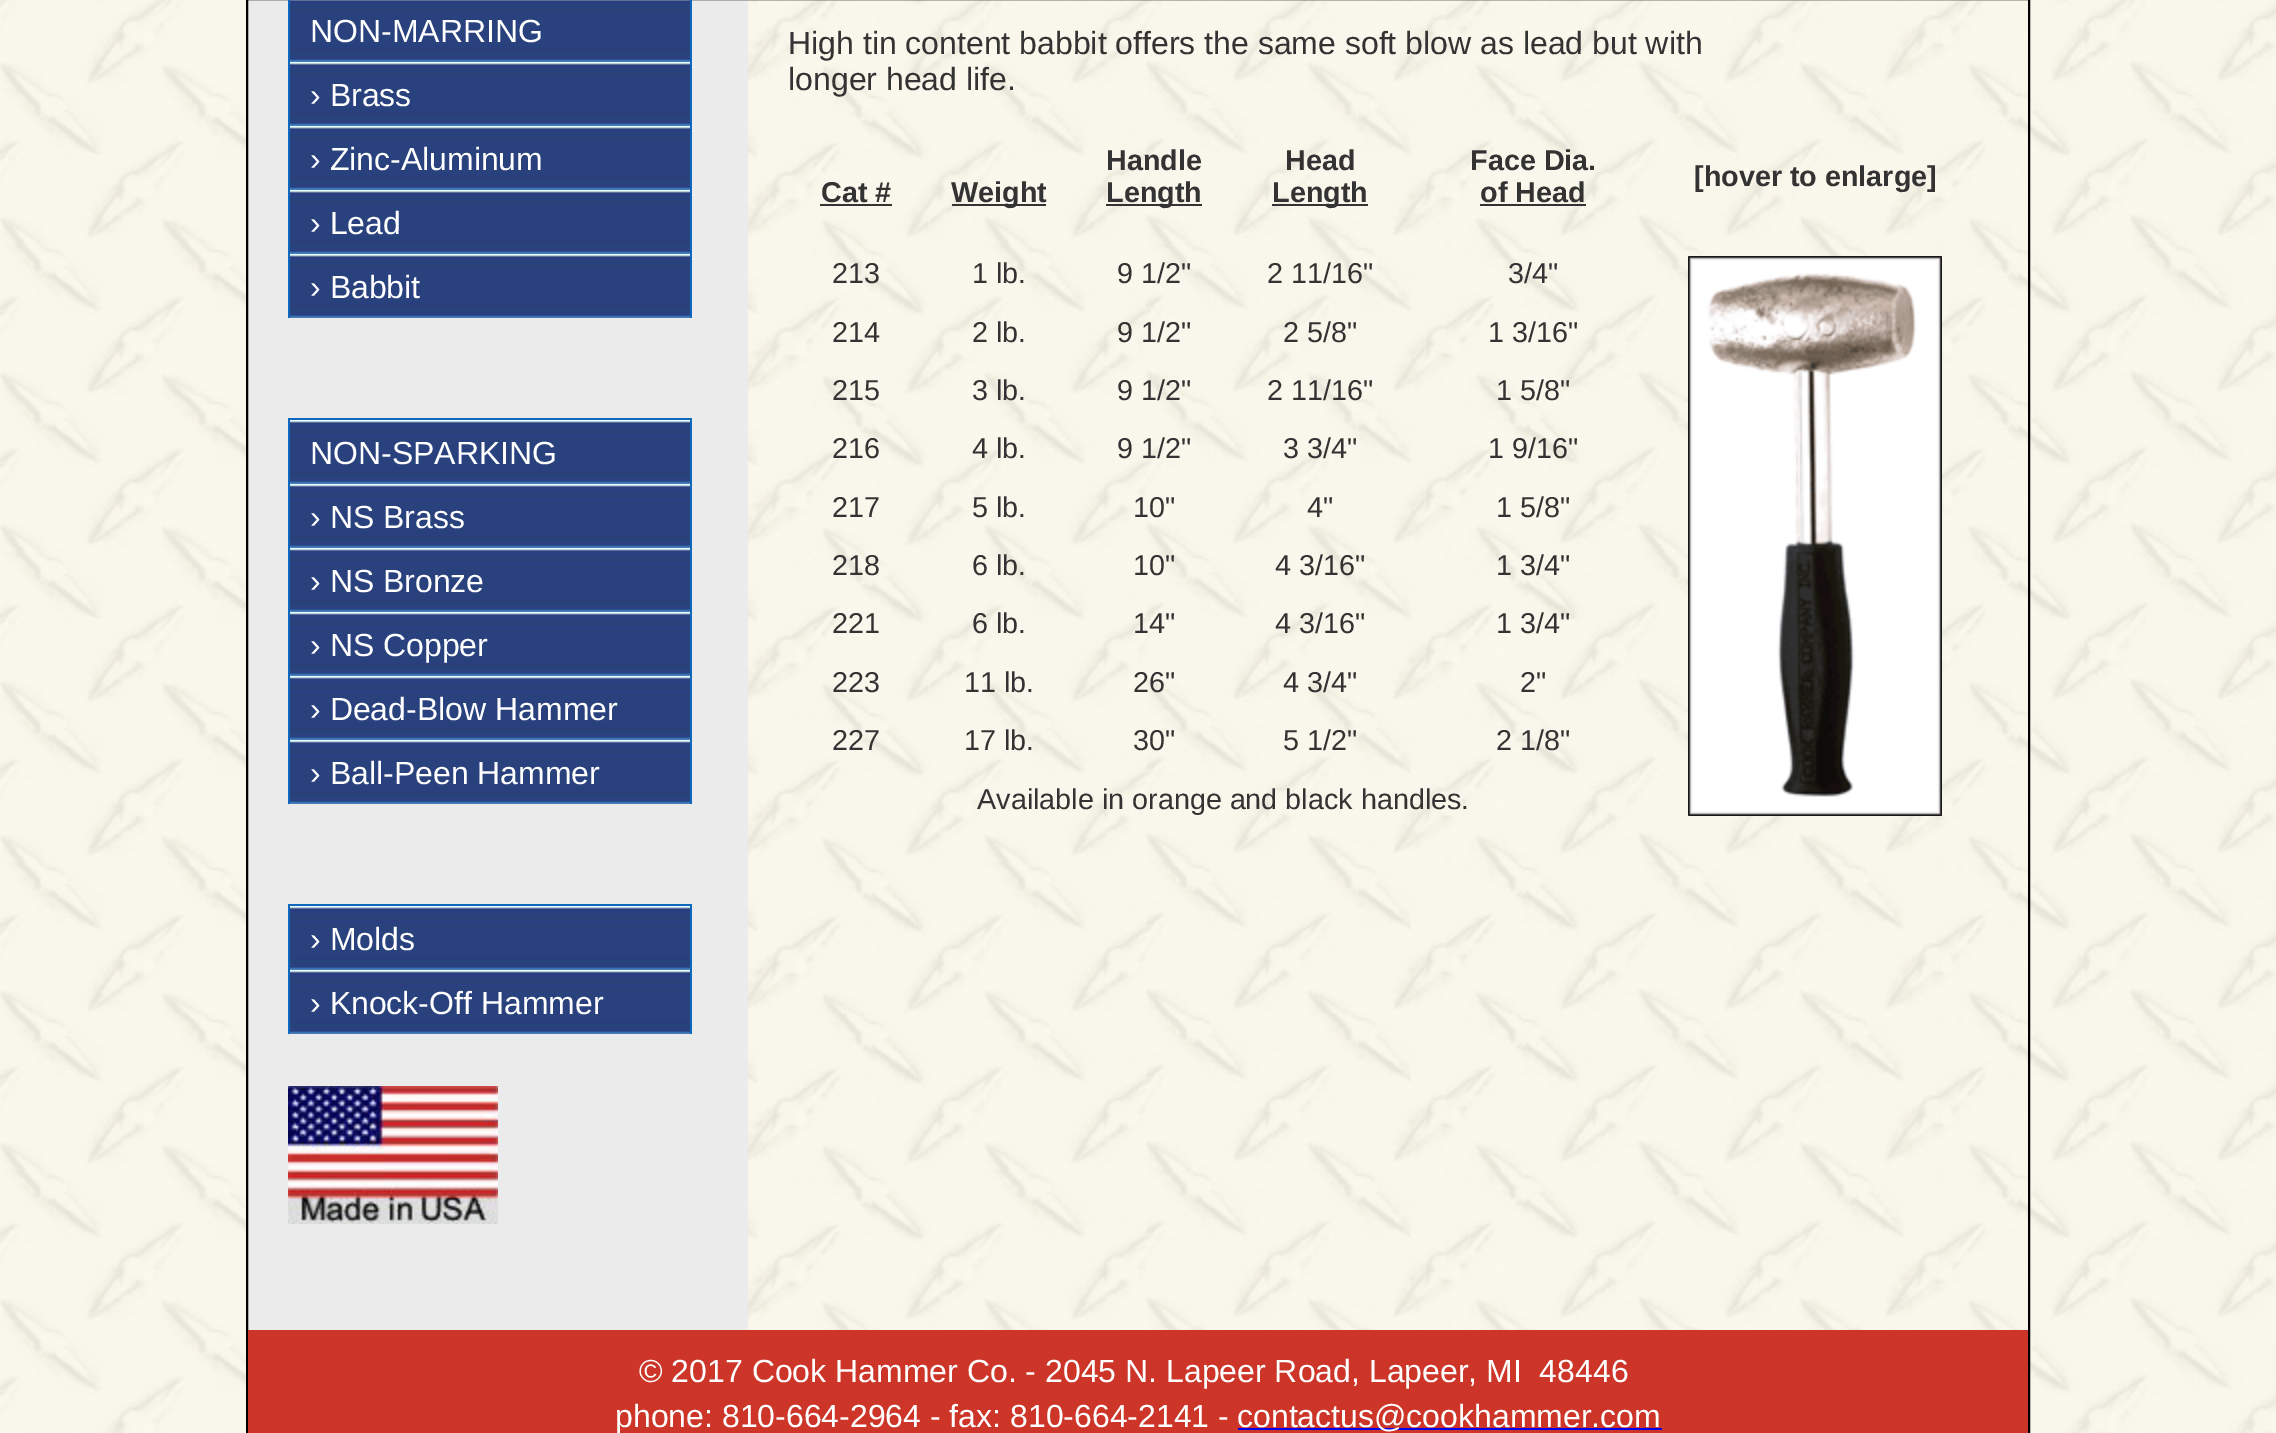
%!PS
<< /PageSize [2276 1433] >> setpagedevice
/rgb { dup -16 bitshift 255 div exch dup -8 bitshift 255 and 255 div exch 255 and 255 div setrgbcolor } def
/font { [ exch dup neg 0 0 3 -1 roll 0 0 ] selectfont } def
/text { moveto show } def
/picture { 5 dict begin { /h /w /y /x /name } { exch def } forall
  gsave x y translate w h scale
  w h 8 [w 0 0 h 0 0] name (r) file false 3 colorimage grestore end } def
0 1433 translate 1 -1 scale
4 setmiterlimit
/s1 { /LiberationSans-Regular 32 font 16#FFFFFF rgb } def
/s2 { /LiberationSans-Regular 32 font 16#333333 rgb } def
/s3 { /LiberationSans-Bold 28.75 font 16#333333 rgb } def
/s4 { /LiberationSans-Regular 28.75 font 16#333333 rgb } def
16#FFFFFF rgb
0 0 2276 1433 rectfill
(pic1.raw) 0 0 2276 1433 picture
(pic2.raw) 248 0 501 1330 picture
16#000000 rgb
2 setlinewidth
247 -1 1782 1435 rectstroke
16#0E69BE rgb
690 0 2 318 rectfill
288 0 2 318 rectfill
(pic3.raw) 290 0 400 62 picture
s1
(NON-MARRING) 310 42 text
(pic4.raw) 290 62 400 64 picture
(› Brass) 310 106 text
(pic4.raw) 290 126 400 64 picture
(› Zinc-Aluminum) 310 170 text
(pic4.raw) 290 190 400 64 picture
(› Lead) 310 234 text
(pic4.raw) 290 254 400 64 picture
(› Babbit) 310 298 text
16#0E69BE rgb
288 418 404 2 rectfill
690 418 2 386 rectfill
288 418 2 386 rectfill
(pic4.raw) 290 420 400 64 picture
s1
(NON-SPARKING) 310 464 text
(pic4.raw) 290 484 400 64 picture
(› NS Brass) 310 528 text
(pic4.raw) 290 548 400 64 picture
(› NS Bronze) 310 592 text
(pic4.raw) 290 612 400 64 picture
(› NS Copper) 310 656 text
(pic4.raw) 290 676 400 64 picture
(› Dead-Blow Hammer) 310 720 text
(pic4.raw) 290 740 400 64 picture
(› Ball-Peen Hammer) 310 784 text
16#0E69BE rgb
288 904 404 2 rectfill
690 904 2 130 rectfill
288 904 2 130 rectfill
(pic4.raw) 290 906 400 64 picture
s1
(› Molds) 310 950 text
(pic4.raw) 290 970 400 64 picture
(› Knock-Off Hammer) 310 1014 text
(pic5.raw) 288 1086 210 138 picture
s2
(High tin content babbit offers the same soft blow as lead but with) 788 54 text
(longer head life.) 788 90 text
s3
(Cat #) 821 202 text
820 204 72 2 rectfill
952 204 94 2 rectfill
(Weight) 951 202 text
(Handle) 1106 170 text
1106 204 96 2 rectfill
(Length) 1106 202 text
(Head) 1285 170 text
1272 204 96 2 rectfill
(Length) 1272 202 text
(Face Dia.) 1470 170 text
(of Head) 1480 202 text
1480 204 106 2 rectfill
([hover to enlarge]) 1694 186 text
s4
(213) 832 283 text
(1 lb.) 972 283 text
(9 1/2") 1117 283 text
(2 11/16") 1267 283 text
(3/4") 1508 283 text
(pic6.raw) 1688 256 254 560 picture
(214) 832 342 text
(2 lb.) 972 342 text
(9 1/2") 1117 342 text
(2 5/8") 1283 342 text
(1 3/16") 1488 342 text
(215) 832 400 text
(3 lb.) 972 400 text
(9 1/2") 1117 400 text
(2 11/16") 1267 400 text
(1 5/8") 1496 400 text
(216) 832 458 text
(4 lb.) 972 458 text
(9 1/2") 1117 458 text
(3 3/4") 1283 458 text
(1 9/16") 1488 458 text
(217) 832 517 text
(5 lb.) 972 517 text
(10") 1133 517 text
(4") 1307 517 text
(1 5/8") 1496 517 text
(218) 832 575 text
(6 lb.) 972 575 text
(10") 1133 575 text
(4 3/16") 1275 575 text
(1 3/4") 1496 575 text
(221) 832 633 text
(6 lb.) 972 633 text
(14") 1133 633 text
(4 3/16") 1275 633 text
(1 3/4") 1496 633 text
(223) 832 692 text
(11 lb.) 964 692 text
(26") 1133 692 text
(4 3/4") 1283 692 text
(2") 1520 692 text
(227) 832 750 text
(17 lb.) 964 750 text
(30") 1133 750 text
(5 1/2") 1283 750 text
(2 1/8") 1496 750 text
(Available in orange and black handles.) 977 809 text
16#CC3528 rgb
248 1330 1780 103 rectfill
s1
(© 2017 Cook Hammer Co. - 2045 N. Lapeer Road, Lapeer, MI  48446) 639 1382 text
(phone: 810-664-2964 - fax: 810-664-2141 -) 615 1427 text
16#0000EE rgb
1238 1428 424 2 rectfill
s1
(contactus@cookhammer.com) 1237 1427 text
showpage
